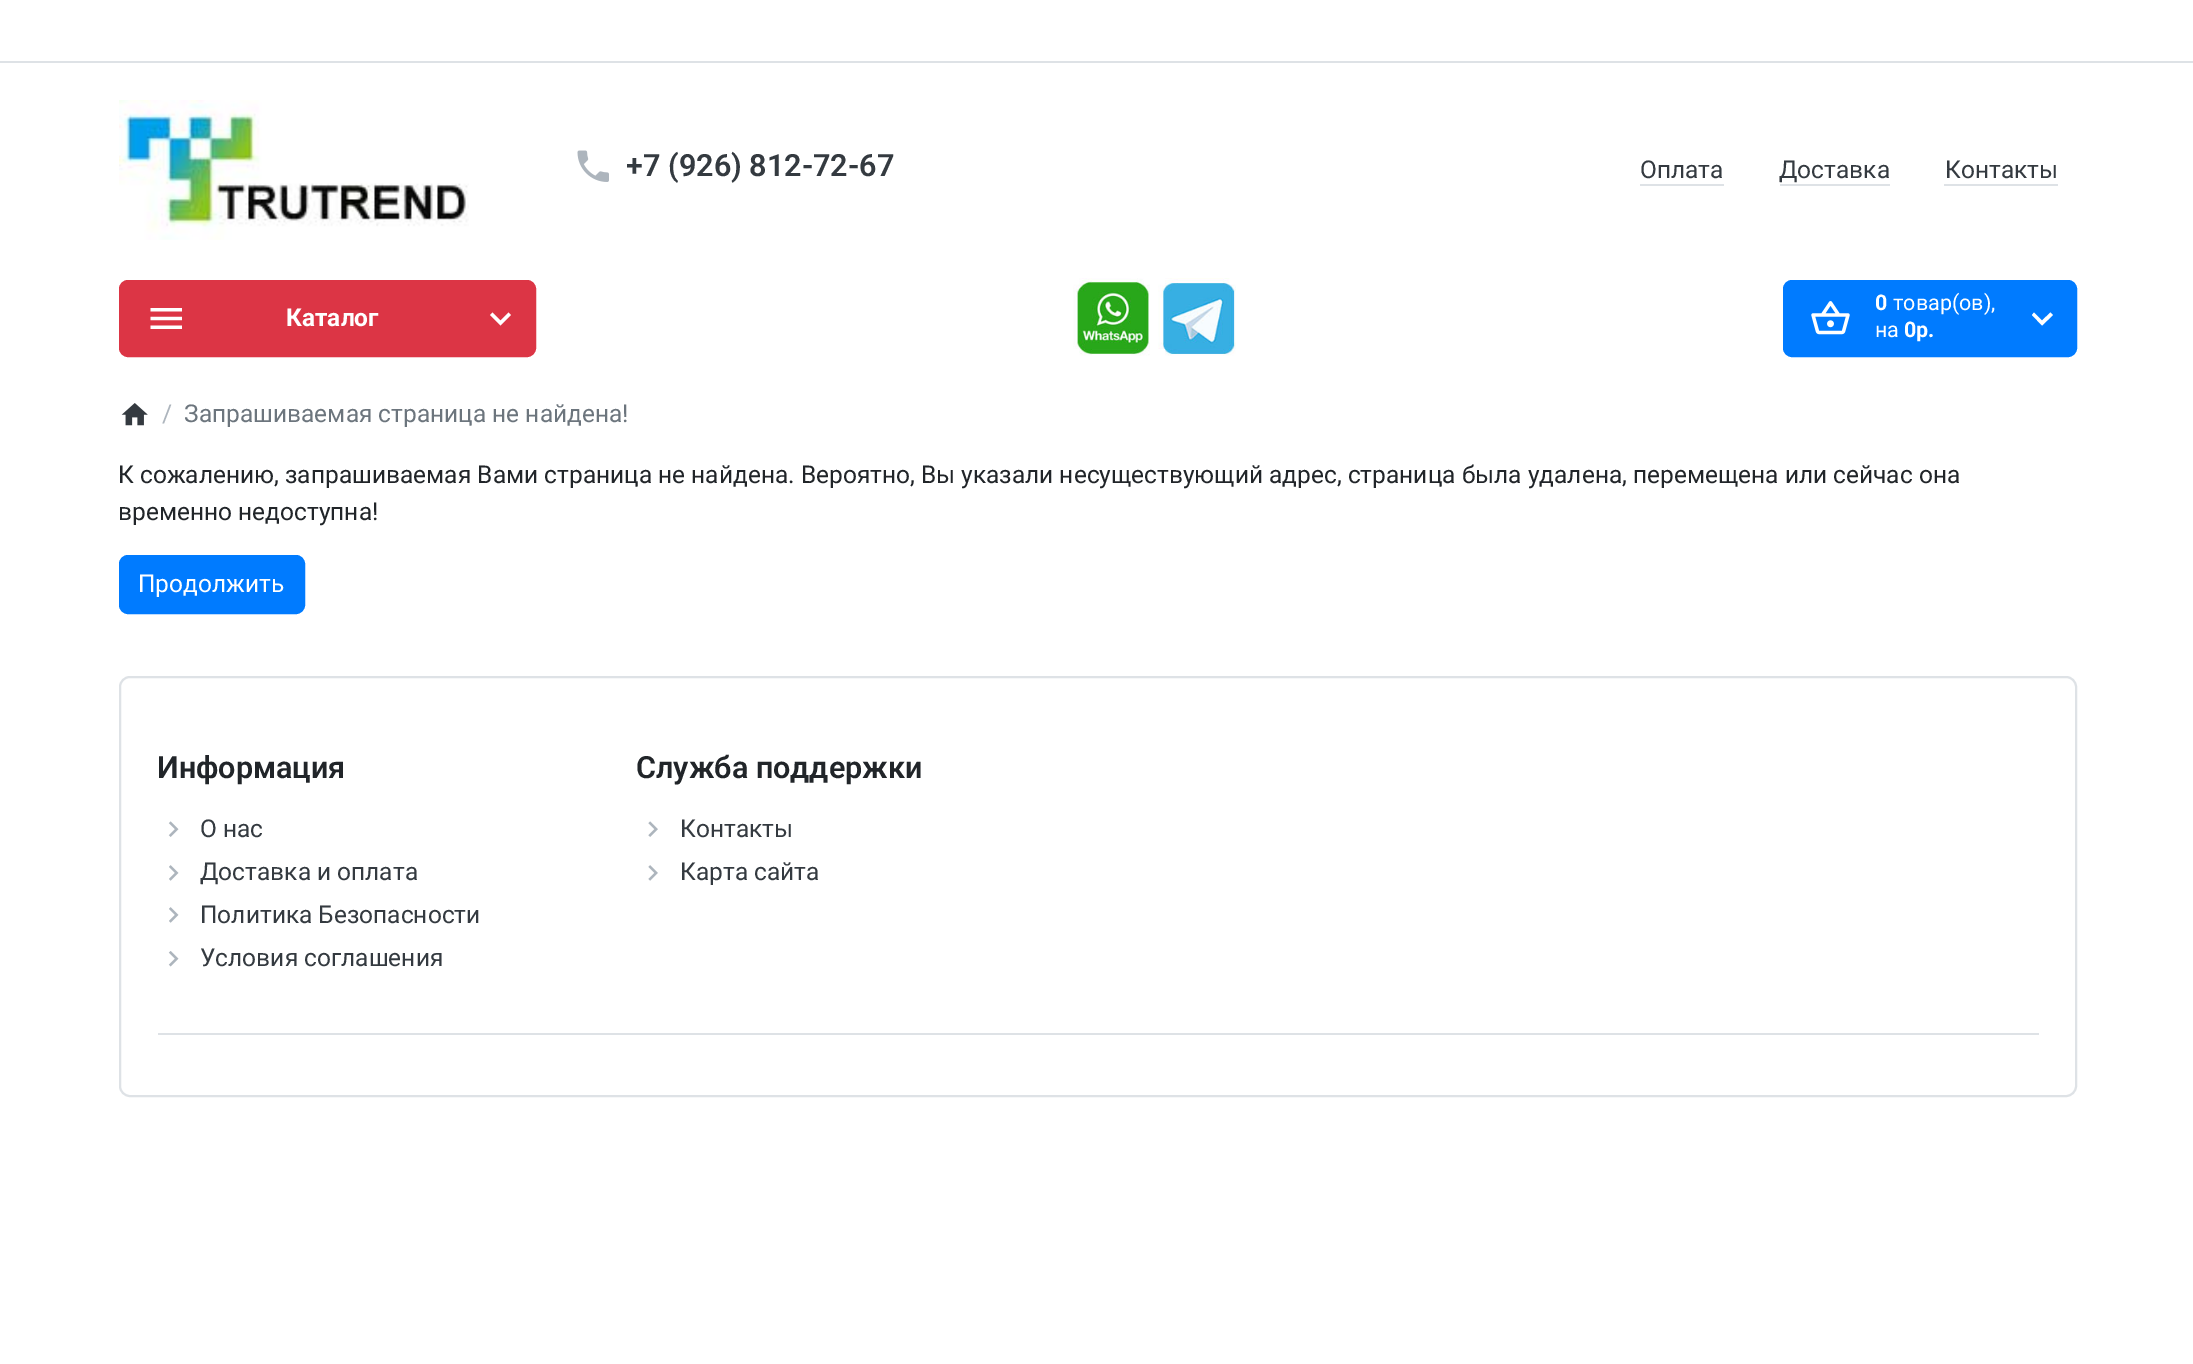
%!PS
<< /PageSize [2193 1364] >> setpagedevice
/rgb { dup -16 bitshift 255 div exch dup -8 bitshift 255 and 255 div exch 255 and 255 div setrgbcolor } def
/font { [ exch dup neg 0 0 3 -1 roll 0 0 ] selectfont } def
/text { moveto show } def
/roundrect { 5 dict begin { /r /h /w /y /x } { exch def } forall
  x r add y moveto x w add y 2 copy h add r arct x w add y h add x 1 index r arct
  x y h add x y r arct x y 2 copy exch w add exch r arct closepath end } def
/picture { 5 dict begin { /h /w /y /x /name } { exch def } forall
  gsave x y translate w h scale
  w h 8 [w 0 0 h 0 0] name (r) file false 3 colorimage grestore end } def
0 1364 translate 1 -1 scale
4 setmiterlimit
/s1 { /Roboto-SemiBold 30.6 font 16#343A40 rgb } def
/s2 { /Roboto-Regular 24.5 font 16#343A40 rgb } def
/s3 { /Roboto-Bold 24.5 font 16#FFFFFF rgb } def
/s4 { /Roboto-Bold 21.5 font 16#FFFFFF rgb } def
/s5 { /Roboto-Regular 21.5 font 16#FFFFFF rgb } def
/s6 { /Roboto-Regular 24.5 font 16#ADB5BD rgb } def
/s7 { /Roboto-Regular 24.5 font 16#6C757D rgb } def
/s8 { /Roboto-Regular 24.5 font 16#212529 rgb } def
/s9 { /Roboto-Regular 24.5 font 16#FFFFFF rgb } def
/s10 { /Roboto-SemiBold 30.6 font 16#212529 rgb } def
16#FFFFFF rgb
0 0 2193 1364 rectfill
16#DEE2E6 rgb
0 61 2193 2 rectfill
(pic1.raw) 119 100 350 140 picture
(pic2.raw) 577 150 32 32 picture
s1
(+7 \(926\) 812-72-67) 626 176 text
s2
(Оплата) 1640 178 text
16#DEE2E6 rgb
1640 184 84 2 rectfill
s2
(Доставка) 1779 178 text
16#DEE2E6 rgb
1780 184 110 2 rectfill
s2
(Контакты) 1945 178 text
16#DEE2E6 rgb
1944 184 114 2 rectfill
16#DC3545 rgb
120 281 415 75 8 roundrect gsave fill grestore
2 setlinewidth
stroke
(pic3.raw) 150 308 32 21 picture
s3
(Каталог) 286 326 text
492.5 312.5 moveto 500.5 320.5 lineto 508.5 312.5 lineto 511 315 lineto 500.5 325.5 lineto 490 315 lineto closepath fill
(pic4.raw) 1073 278 77 78 picture
(pic5.raw) 1158 278 78 78 picture
16#007BFF rgb
1784 281 292 75 8 roundrect gsave fill grestore
stroke
(pic6.raw) 1811 301 39 34 picture
s4
(0) 1875 310 text
s5
(товар\(ов\),) 1893 310 text
(на) 1875 337 text
s4
(0р.) 1904 337 text
2034 312.5 moveto 2042 320.5 lineto 2050.5 312.5 lineto 2053 315 lineto 2042 325.5 lineto 2032 315 lineto closepath fill
(pic7.raw) 121 403 27 23 picture
s6
(/) 162 422 text
s7
(Запрашиваемая страница не найдена!) 184 422 text
s8
(К сожалению, запрашиваемая Вами страница не найдена. Вероятно, Вы указали несуществующий адрес, страница была удалена, перемещена или сейчас она) 118 483 text
(временно недоступна!) 118 520 text
16#007BFF rgb
120 556 184 57 8 roundrect gsave fill grestore
stroke
s9
(Продолжить) 138 592 text
16#DEE2E6 rgb
120 677 1956 419 10 roundrect stroke
s10
(Информация) 157 778 text
(pic8.raw) 168 821 11 16 picture
s2
(О нас) 200 837 text
(pic9.raw) 169 865 10 16 picture
(Доставка и оплата) 200 880 text
(pic9.raw) 169 907 10 16 picture
(Политика Безопасности) 200 923 text
(pic10.raw) 168 951 11 16 picture
(Условия соглашения) 200 966 text
s10
(Служба поддержки) 636 778 text
(pic11.raw) 648 821 10 16 picture
s2
(Контакты) 680 837 text
(pic12.raw) 648 865 10 16 picture
(Карта сайта) 680 880 text
16#DEE2E6 rgb
158 1033 1881 2 rectfill
showpage
